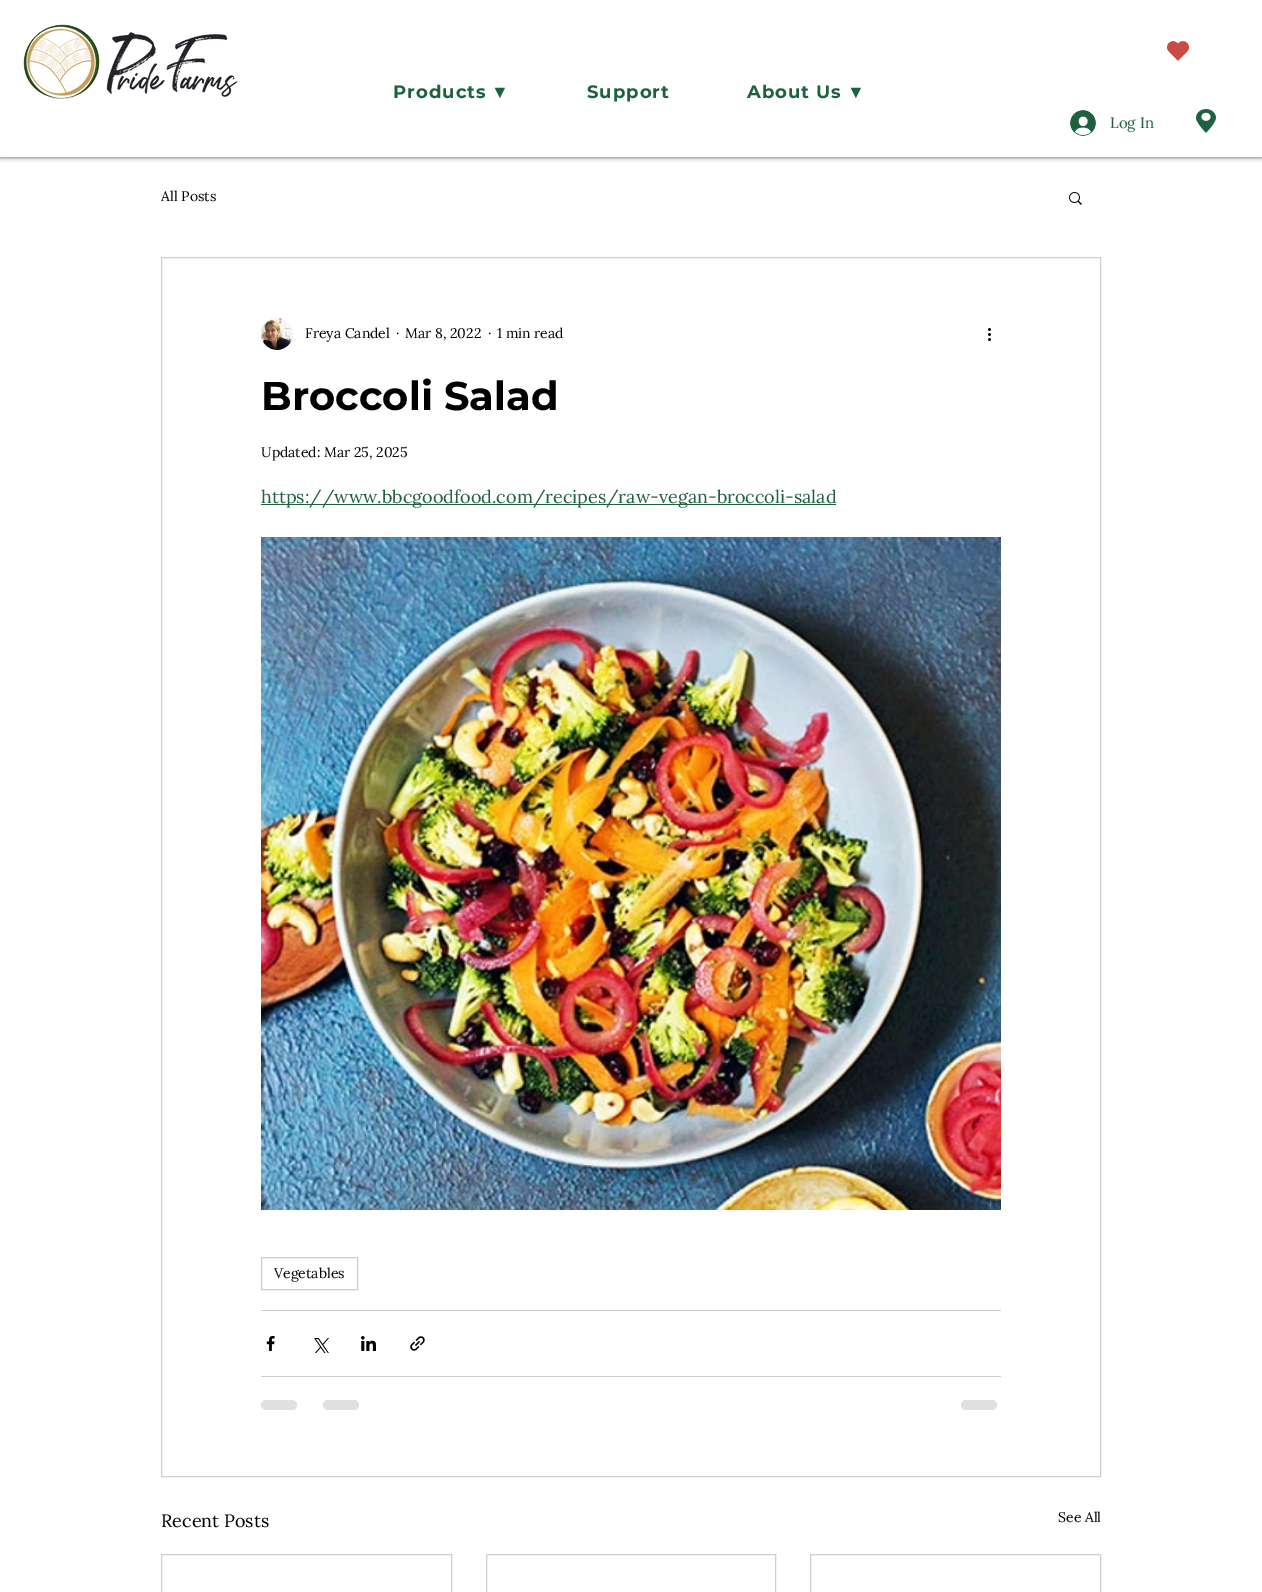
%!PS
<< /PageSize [1262 1592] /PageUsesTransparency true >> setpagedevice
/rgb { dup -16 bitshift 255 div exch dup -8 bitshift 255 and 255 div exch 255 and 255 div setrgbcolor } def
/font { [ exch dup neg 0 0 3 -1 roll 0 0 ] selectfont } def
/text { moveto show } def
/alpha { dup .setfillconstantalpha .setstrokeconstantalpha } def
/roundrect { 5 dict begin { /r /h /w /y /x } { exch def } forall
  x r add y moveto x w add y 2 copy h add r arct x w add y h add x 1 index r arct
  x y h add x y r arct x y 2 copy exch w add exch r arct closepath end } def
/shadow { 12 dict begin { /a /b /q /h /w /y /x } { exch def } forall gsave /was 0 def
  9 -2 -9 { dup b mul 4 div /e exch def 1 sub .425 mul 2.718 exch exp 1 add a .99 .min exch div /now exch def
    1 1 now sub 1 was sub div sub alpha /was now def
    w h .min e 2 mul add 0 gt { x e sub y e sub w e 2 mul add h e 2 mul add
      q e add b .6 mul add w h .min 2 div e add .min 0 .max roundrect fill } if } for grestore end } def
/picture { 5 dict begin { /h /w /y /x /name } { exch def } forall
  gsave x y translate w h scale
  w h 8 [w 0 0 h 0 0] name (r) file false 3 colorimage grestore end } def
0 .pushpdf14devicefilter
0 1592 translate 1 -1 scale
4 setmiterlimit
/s1 { /Lora-Regular 15 font 16#1E613F rgb } def
/s2 { /Lora-Regular 14 font 16#000000 rgb } def
/s3 { /Montserrat-Bold 40 font 16#000000 rgb } def
/s4 { /Lora-Regular 18 font 16#1E613F rgb } def
/s5 { /Lora-Regular 18 font 16#000000 rgb } def
16#FFFFFF rgb
0 0 1262 1592 rectfill
16#000000 rgb
0 0 1262 157 0 2.5 0.7 shadow
16#FFFFFF rgb
0 0 1262 157 rectfill
(pic1.raw) 23 24 215 75 picture
/Montserrat-Bold 18 font
16#1E613F rgb
393 98 moveto 1 0 (Products) ashow
/LiberationSans-Bold 18 font
491 98 moveto 1 0 (▼) ashow
/Montserrat-Bold 18 font
587 98 moveto 1 0 (Support) ashow
747 98 moveto 1 0 (About Us) ashow
/LiberationSans-Bold 18 font
847 98 moveto 1 0 (▼) ashow
(pic2.raw) 1167 41 22 20 picture
(pic3.raw) 1070 110 26 26 picture
s1
(Log In) 1110 128 text
(pic4.raw) 1196 109 20 24 picture
s2
(All Posts) 161 201 text
(pic5.raw) 1069 192 13 13 picture
16#CFCFCF rgb
161.5 257.5 939 1219 rectstroke
(pic6.raw) 261 318 32 32 picture
s2
(Freya Candel) 305 338 text
(·) 396 338 text
(Mar 8, 2022) 405 338 text
(·) 488 338 text
(1 min read) 497 338 text
(pic7.raw) 988 328 3 13 picture
s3
(Broccoli Salad) 261 410 text
s2
(Updated: Mar 25, 2025) 261 457 text
16#1E613F rgb
261 504 575 1 rectfill
s4
(https://www.bbcgoodfood.com/recipes/raw-vegan-broccoli-salad) 261 503 text
(pic8.raw) 261 537 740 673 picture
16#CCCCCC rgb
261.5 1257.5 96 32 rectstroke
s2
(Vegetables) 274 1278 text
16#CCCCCC rgb
261 1310 740 1 rectfill
(pic9.raw) 266 1336 9 15 picture
(pic10.raw) 314 1338 15 15 picture
(pic11.raw) 361 1336 15 15 picture
(pic12.raw) 410 1336 15 15 picture
261 1376 740 1 rectfill
16#E0E0E0 rgb
261 1400 36 10 5 roundrect fill
323 1400 36 10 5 roundrect fill
961 1400 36 10 5 roundrect fill
s5
(Recent Posts) 161 1527 text
s2
(See All) 1058 1522 text
16#CFCFCF rgb
161.5 1554.5 290 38 rectstroke
486.5 1554.5 289 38 rectstroke
810.5 1554.5 290 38 rectstroke
.poppdf14devicefilter showpage
